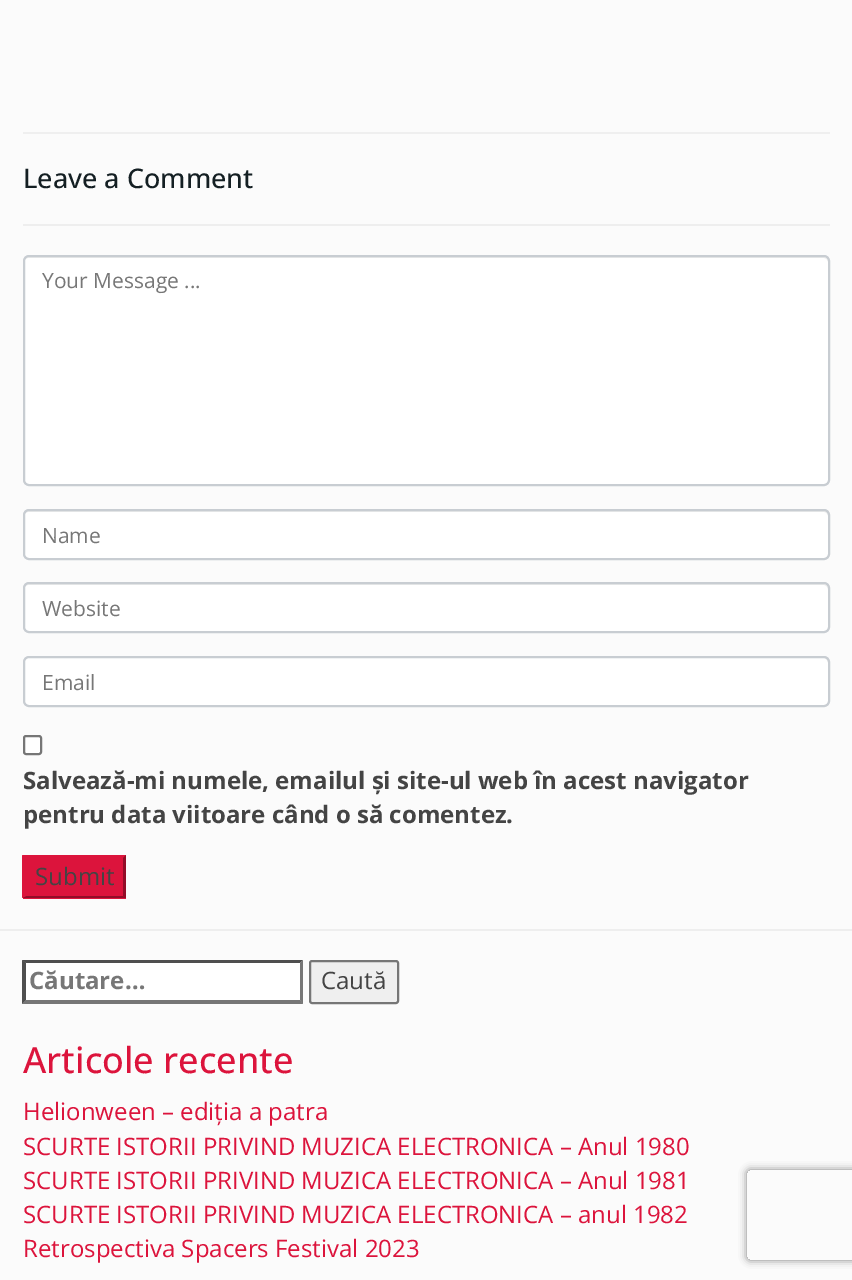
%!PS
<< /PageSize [852 1280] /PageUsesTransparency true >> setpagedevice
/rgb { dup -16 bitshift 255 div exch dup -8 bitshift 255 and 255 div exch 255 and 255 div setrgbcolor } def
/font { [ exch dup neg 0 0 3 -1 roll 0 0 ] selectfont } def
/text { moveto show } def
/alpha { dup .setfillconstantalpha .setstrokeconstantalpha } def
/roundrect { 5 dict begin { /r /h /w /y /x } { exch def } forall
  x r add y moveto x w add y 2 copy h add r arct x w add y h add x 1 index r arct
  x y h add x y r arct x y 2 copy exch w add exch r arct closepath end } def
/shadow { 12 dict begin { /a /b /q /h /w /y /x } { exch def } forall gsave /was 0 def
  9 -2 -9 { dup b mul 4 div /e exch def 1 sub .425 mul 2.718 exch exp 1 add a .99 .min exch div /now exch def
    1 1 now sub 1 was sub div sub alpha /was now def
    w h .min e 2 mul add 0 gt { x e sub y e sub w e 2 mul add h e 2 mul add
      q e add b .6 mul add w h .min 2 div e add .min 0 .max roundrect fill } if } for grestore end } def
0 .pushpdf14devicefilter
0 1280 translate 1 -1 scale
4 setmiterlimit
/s1 { /OpenSans-Medium 27 font 16#141F23 rgb } def
/s2 { /OpenSans-Regular 21 font 16#777777 rgb } def
/s3 { /OpenSans-Bold 24 font 16#444444 rgb } def
/s4 { /OpenSans-Regular 24 font 16#444444 rgb } def
/s5 { /OpenSans-Bold 24 font 16#777777 rgb } def
/s6 { /OpenSans-Medium 36 font 16#DC143C rgb } def
/s7 { /OpenSans-Regular 24 font 16#DC143C rgb } def
16#FBFBFB rgb
0 0 852 1280 rectfill
16#EFEFEF rgb
23 132 807 2 rectfill
s1
(Leave a Comment) 23 188 text
16#EEEEEE rgb
23 224 807 2 rectfill
16#FFFFFF rgb
23 255 807 231 6 roundrect fill
16#ECECEC rgb
28 258 moveto 824 258 lineto 826 258 828 260 828 262 curveto 828 259 826 257 823 257 curveto 29 257 lineto 26 257 24 259 24 262 curveto 24 260 26 258 28 258 curveto closepath fill
16#C8CDD2 rgb
2 setlinewidth
24 256 805 229 5 roundrect stroke
s2
(Your Message ...) 42 288 text
16#FFFFFF rgb
23 509 807 51 6 roundrect fill
16#ECECEC rgb
28 512 moveto 824 512 lineto 826 512 828 514 828 516 curveto 828 515 lineto 828 512 826 510 823 510 curveto 29 510 lineto 26 510 24 512 24 515 curveto 24 516 lineto 24 514 26 512 28 512 curveto closepath fill
16#C8CDD2 rgb
24 510 805 49 5 roundrect stroke
s2
(Name) 42 543 text
16#FFFFFF rgb
23 582 807 51 6 roundrect fill
16#ECECEC rgb
28 585 moveto 824 585 lineto 826 585 828 587 828 590 curveto 828 589 lineto 828 586 826 584 823 584 curveto 29 584 lineto 26 584 24 586 24 589 curveto 24 590 lineto 24 587 26 585 28 585 curveto closepath fill
16#C8CDD2 rgb
24 583 805 49 5 roundrect stroke
s2
(Website) 42 616 text
16#FFFFFF rgb
23 656 807 51 6 roundrect fill
16#ECECEC rgb
28 658 moveto 824 658 lineto 826 658 828 661 828 663 curveto 828 662 lineto 828 659 826 657 823 657 curveto 29 657 lineto 26 657 24 659 24 662 curveto 24 663 lineto 24 661 26 658 28 658 curveto closepath fill
16#C8CDD2 rgb
24 657 805 49 5 roundrect stroke
s2
(Email) 42 690 text
16#FFFFFF rgb
24 736 17 18 2 roundrect gsave fill grestore
16#767676 rgb
stroke
s3
(Salvează-mi numele, emailul și site-ul web în acest navigator) 23 789 text
(pentru data viitoare când o să comentez.) 23 823 text
16#DC143C rgb
23 855 103 44 rectfill
22 855 moveto 126 855 lineto 123 858 lineto 26 858 lineto closepath fill
16#930D28 rgb
126 855 moveto 126 898 lineto 123 896 lineto 123 858 lineto closepath fill
126 898 moveto 22 898 lineto 26 896 lineto 123 896 lineto closepath fill
16#DC143C rgb
22 898 moveto 22 855 lineto 26 858 lineto 26 896 lineto closepath fill
s4
(Submit) 35 885 text
16#EEEEEE rgb
0 929 852 2 rectfill
16#FFFFFF rgb
23 960 280 44 rectfill
16#4F4F4F rgb
22 960 moveto 303 960 lineto 300 963 lineto 26 963 lineto closepath fill
16#767676 rgb
303 960 moveto 303 1004 lineto 300 1000 lineto 300 963 lineto closepath fill
303 1004 moveto 22 1004 lineto 26 1000 lineto 300 1000 lineto closepath fill
16#4F4F4F rgb
22 1004 moveto 22 960 lineto 26 963 lineto 26 1000 lineto closepath fill
s5
(Căutare…) 29 989 text
16#EFEFEF rgb
310 961 88 42 2 roundrect gsave fill grestore
16#767676 rgb
stroke
s4
(Caută) 321 989 text
s6
(Articole recente) 23 1073 text
s7
(Helionween – ediția a patra) 23 1120 text
(SCURTE ISTORII PRIVIND MUZICA ELECTRONICA – Anul 1980) 23 1155 text
(SCURTE ISTORII PRIVIND MUZICA ELECTRONICA – Anul 1981) 23 1189 text
(SCURTE ISTORII PRIVIND MUZICA ELECTRONICA – anul 1982) 23 1223 text
(Retrospectiva Spacers Festival 2023) 23 1257 text
gsave
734 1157 moveto 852 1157 lineto 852 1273 lineto 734 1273 lineto closepath 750 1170 moveto 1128 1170 lineto 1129.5 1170 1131 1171.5 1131 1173 curveto 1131 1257 lineto 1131 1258.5 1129.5 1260 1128 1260 curveto 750 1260 lineto 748.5 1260 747 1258.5 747 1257 curveto 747 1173 lineto 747 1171.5 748.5 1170 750 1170 curveto closepath eoclip newpath
16#808080 rgb
747 1170 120 90 3 4 1 shadow
grestore
.poppdf14devicefilter showpage
